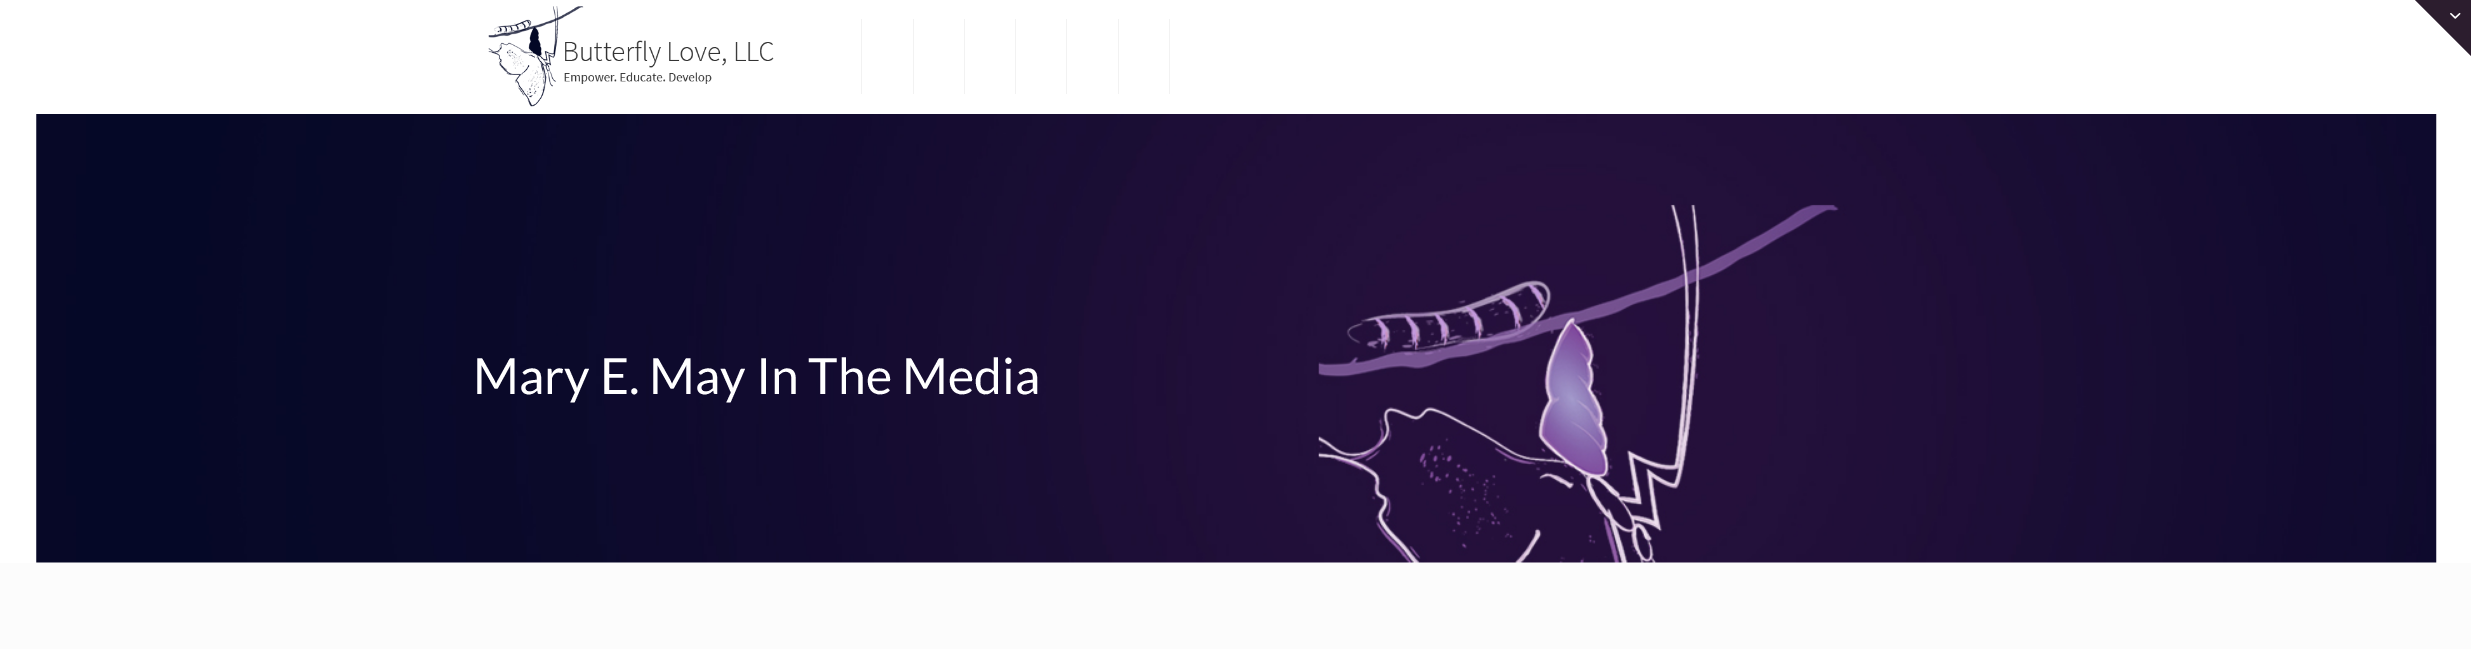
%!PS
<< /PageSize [2471 649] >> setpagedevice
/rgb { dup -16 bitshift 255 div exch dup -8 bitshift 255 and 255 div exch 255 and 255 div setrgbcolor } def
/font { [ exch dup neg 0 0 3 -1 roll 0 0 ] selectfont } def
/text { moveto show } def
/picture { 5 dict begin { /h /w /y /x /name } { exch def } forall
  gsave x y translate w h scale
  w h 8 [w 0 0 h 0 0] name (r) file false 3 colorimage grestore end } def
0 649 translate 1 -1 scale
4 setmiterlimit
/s1 { /Lato-Regular 50 font 16#FFFFFF rgb } def
16#FCFCFC rgb
0 0 2471 649 rectfill
16#FFFFFF rgb
0 0 2471 563 rectfill
16#2C1D2E rgb
2471 0 moveto 2471 56 lineto 2415 0 lineto closepath fill
(pic1.raw) 2450 12 11 7 picture
(pic2.raw) 36 114 2401 449 picture
(pic3.raw) 488 6 286 101 picture
16#F2F2F2 rgb
861 19 1 75 rectfill
913 19 1 75 rectfill
964 19 1 75 rectfill
1015 19 1 75 rectfill
1066 19 1 75 rectfill
1118 19 1 75 rectfill
1169 19 1 75 rectfill
s1
(Mary E. May In The Media) 473 394 text
showpage
